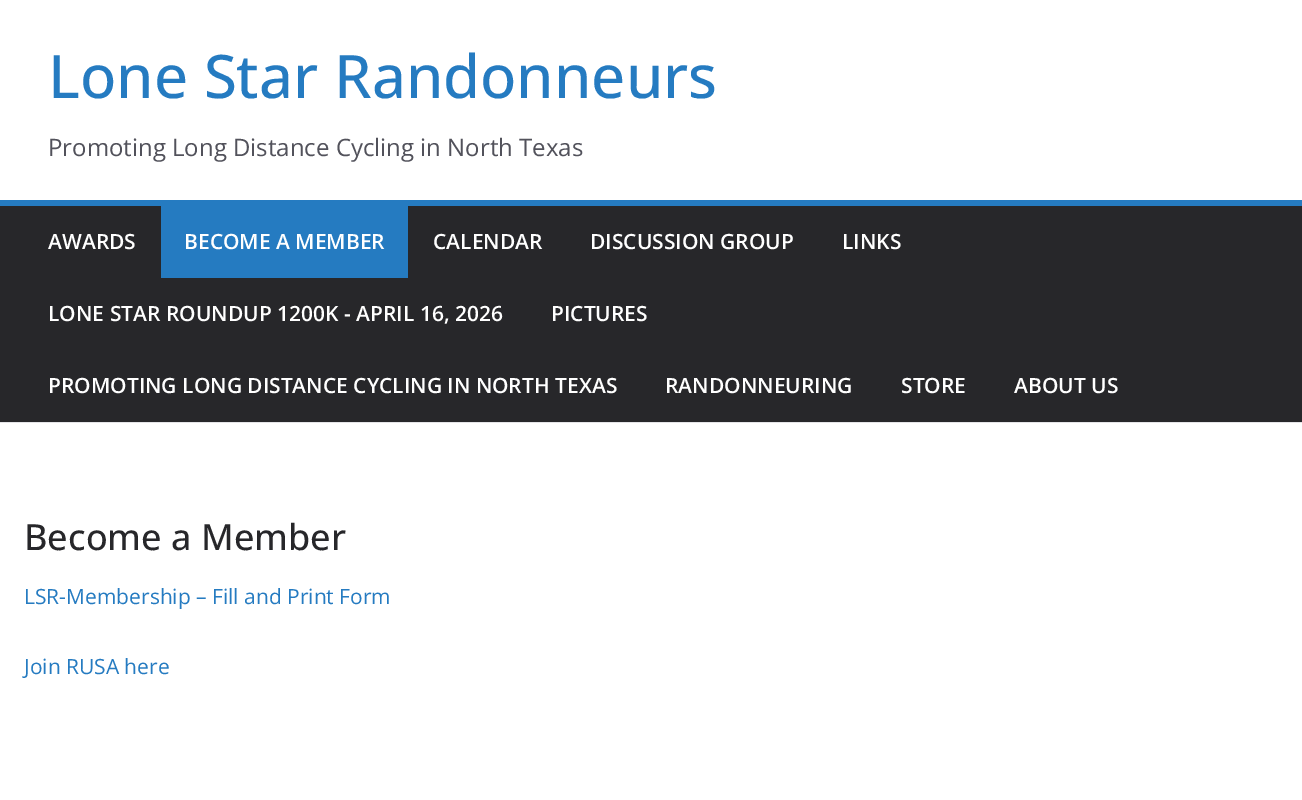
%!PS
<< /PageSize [1302 800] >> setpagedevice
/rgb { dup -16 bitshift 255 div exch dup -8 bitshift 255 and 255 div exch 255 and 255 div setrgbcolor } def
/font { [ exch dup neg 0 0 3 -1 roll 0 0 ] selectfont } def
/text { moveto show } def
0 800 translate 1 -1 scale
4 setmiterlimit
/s1 { /OpenSans-Medium 60 font 16#257BC1 rgb } def
/s2 { /OpenSans-Regular 24 font 16#52525B rgb } def
/s3 { /OpenSans-SemiBold 21 font 16#FFFFFF rgb } def
/s4 { /OpenSans-Medium 36 font 16#27272A rgb } def
/s5 { /OpenSans-Regular 21 font 16#257BC1 rgb } def
16#FFFFFF rgb
0 0 1302 800 rectfill
16#E4E4E7 rgb
0 422 1302 1 rectfill
s1
(Lone Star Randonneurs) 48 98 text
s2
(Promoting Long Distance Cycling in North Texas) 48 156 text
16#27272A rgb
0 206 1302 216 rectfill
16#257BC1 rgb
0 200 1302 6 rectfill
s3
(AWARDS) 48 249 text
16#257BC1 rgb
161 206 247 72 rectfill
s3
(BECOME A MEMBER) 184 249 text
(CALENDAR) 433 249 text
(DISCUSSION GROUP) 590 249 text
(LINKS) 842 249 text
(LONE STAR ROUNDUP 1200K - APRIL 16, 2026) 48 321 text
(PICTURES) 551 321 text
(PROMOTING LONG DISTANCE CYCLING IN NORTH TEXAS) 48 393 text
(RANDONNEURING) 665 393 text
(STORE) 901 393 text
(ABOUT US) 1014 393 text
s4
(Become a Member) 24 550 text
s5
(LSR-Membership – Fill and Print Form) 24 604 text
(Join RUSA here) 24 674 text
showpage
